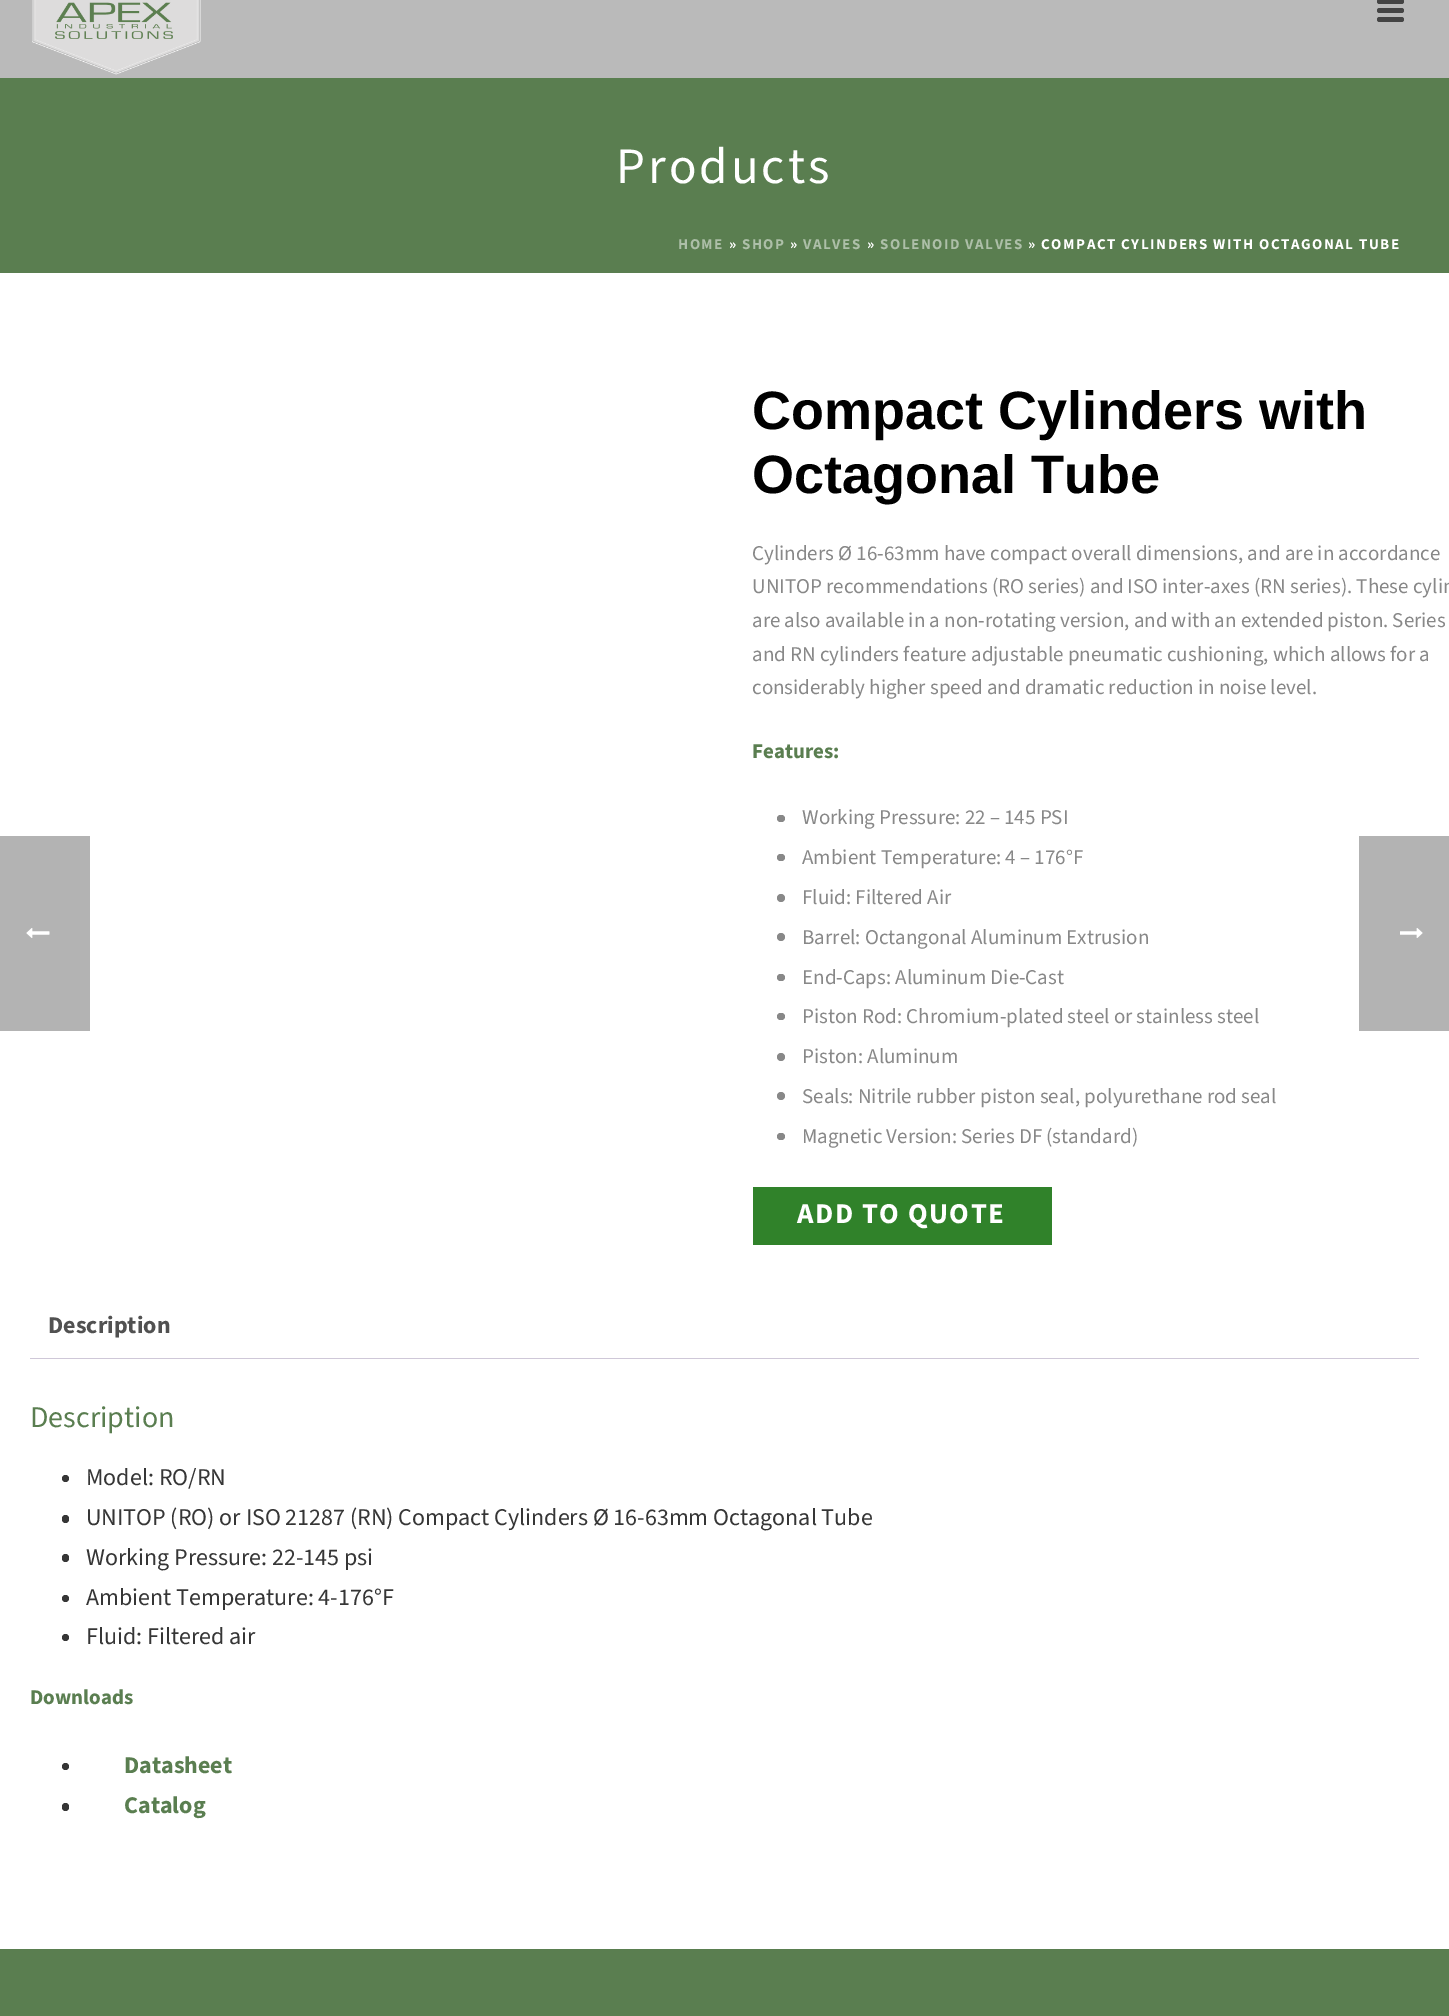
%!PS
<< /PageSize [1449 2016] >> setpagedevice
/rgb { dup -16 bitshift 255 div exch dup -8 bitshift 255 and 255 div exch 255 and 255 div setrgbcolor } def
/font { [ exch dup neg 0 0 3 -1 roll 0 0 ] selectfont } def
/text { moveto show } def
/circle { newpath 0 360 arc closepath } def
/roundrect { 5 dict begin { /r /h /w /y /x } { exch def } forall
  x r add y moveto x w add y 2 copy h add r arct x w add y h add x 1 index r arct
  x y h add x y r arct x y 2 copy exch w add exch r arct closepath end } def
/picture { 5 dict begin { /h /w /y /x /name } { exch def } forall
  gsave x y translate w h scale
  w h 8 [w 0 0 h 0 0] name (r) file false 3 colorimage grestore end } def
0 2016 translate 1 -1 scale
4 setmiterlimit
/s1 { /LiberationSans-Bold 54 font 16#000000 rgb } def
/s2 { /SourceSans3-Regular 21 font 16#888888 rgb } def
/s3 { /SourceSans3-Bold 21 font 16#5A7E50 rgb } def
/s4 { /SourceSans3-Bold 24 font 16#515151 rgb } def
/s5 { /SourceSans3-Regular 30 font 16#5A7E50 rgb } def
/s6 { /SourceSans3-Regular 24 font 16#363636 rgb } def
/s7 { /SourceSans3-Bold 24 font 16#5A7E50 rgb } def
16#FFFFFF rgb
0 0 1449 2016 rectfill
16#5A7E50 rgb
0 78 1449 195 rectfill
16#BABABA rgb
0 0 1449 78 rectfill
(pic1.raw) 32 0 169 75 picture
16#444444 rgb
1377 -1 27 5 2.5 roundrect fill
1377 8 27 5 2.5 roundrect fill
1377 17 27 5 2.5 roundrect fill
/SourceSans3-Regular 51 font
16#FFFFFF rgb
616 183 moveto 3 0 (Products) ashow
/SourceSans3-Bold 15 font
16#ADBFA8 rgb
678 249 moveto 1.5 0 (HOME) ashow
16#FFFFFF rgb
729 249 moveto 1.5 0 (») ashow
16#ADBFA8 rgb
742 249 moveto 1.5 0 (SHOP) ashow
16#FFFFFF rgb
790 249 moveto 1.5 0 (») ashow
16#ADBFA8 rgb
803 249 moveto 1.5 0 (VALVES) ashow
16#FFFFFF rgb
867 249 moveto 1.5 0 (») ashow
16#ADBFA8 rgb
880 249 moveto 1.5 0 (SOLENOID VALVES) ashow
16#FFFFFF rgb
1028 249 moveto 1.5 0 (» COMPACT CYLINDERS WITH OCTAGONAL TUBE) ashow
s1
(Compact Cylinders with) 752 429 text
(Octagonal Tube) 752 493 text
s2
(Cylinders Ø 16-63mm have compact overall dimensions, and are in accordance) 752 560 text
(UNITOP recommendations \(RO series\) and ISO inter-axes \(RN series\). These cylin) 752 593 text
(are also available in a non-rotating version, and with an extended piston. Series) 752 627 text
(and RN cylinders feature adjustable pneumatic cushioning, which allows for a) 752 661 text
(considerably higher speed and dramatic reduction in noise level.) 752 694 text
s3
(Features:) 752 758 text
16#888888 rgb
777 815 8 7 3.5 roundrect fill
s2
(Working Pressure: 22 – 145 PSI) 802 824 text
777 854 8 7 3.5 roundrect fill
(Ambient Temperature: 4 – 176°F) 802 864 text
781 898 4 circle fill
(Fluid: Filtered Air) 802 904 text
781 937 4 circle fill
(Barrel: Octangonal Aluminum Extrusion) 802 944 text
777 974 8 7 3.5 roundrect fill
(End-Caps: Aluminum Die-Cast) 802 984 text
777 1013 8 7 3.5 roundrect fill
(Piston Rod: Chromium-plated steel or stainless steel) 802 1023 text
781 1057 4 circle fill
(Piston: Aluminum) 802 1063 text
781 1096 4 circle fill
(Seals: Nitrile rubber piston seal, polyurethane rod seal) 802 1103 text
777 1133 8 7 3.5 roundrect fill
(Magnetic Version: Series DF \(standard\)) 802 1143 text
16#30822A rgb
753 1187 299 58 rectfill
/SourceSans3-Bold 28.75 font
16#FFFFFF rgb
797 1223 moveto 1.5 0 (ADD TO QUOTE) ashow
s4
(Description) 48 1333 text
16#CFC8D8 rgb
30 1358 1389 1 rectfill
s5
(Description) 30 1427 text
16#363636 rgb
65.5 1478.5 3.5 circle fill
s6
(Model: RO/RN) 86 1485 text
62 1515 7 8 3.5 roundrect fill
(UNITOP \(RO\) or ISO 21287 \(RN\) Compact Cylinders Ø 16-63mm Octagonal Tube) 86 1525 text
62 1554 7 8 3.5 roundrect fill
(Working Pressure: 22-145 psi) 86 1565 text
65.5 1598.5 3.5 circle fill
(Ambient Temperature: 4-176°F) 86 1605 text
65.5 1637.5 3.5 circle fill
(Fluid: Filtered air) 86 1644 text
s3
(Downloads) 30 1704 text
16#363636 rgb
65.5 1766.5 3.5 circle fill
s7
(Datasheet) 124 1773 text
16#363636 rgb
62 1803 7 8 3.5 roundrect fill
s7
(Catalog) 124 1813 text
0 1949 1449 67 rectfill
16#B3B3B3 rgb
0 836 90 195 rectfill
(pic2.raw) 26 928 24 10 picture
1359 836 90 195 rectfill
(pic3.raw) 1400 928 23 10 picture
showpage
